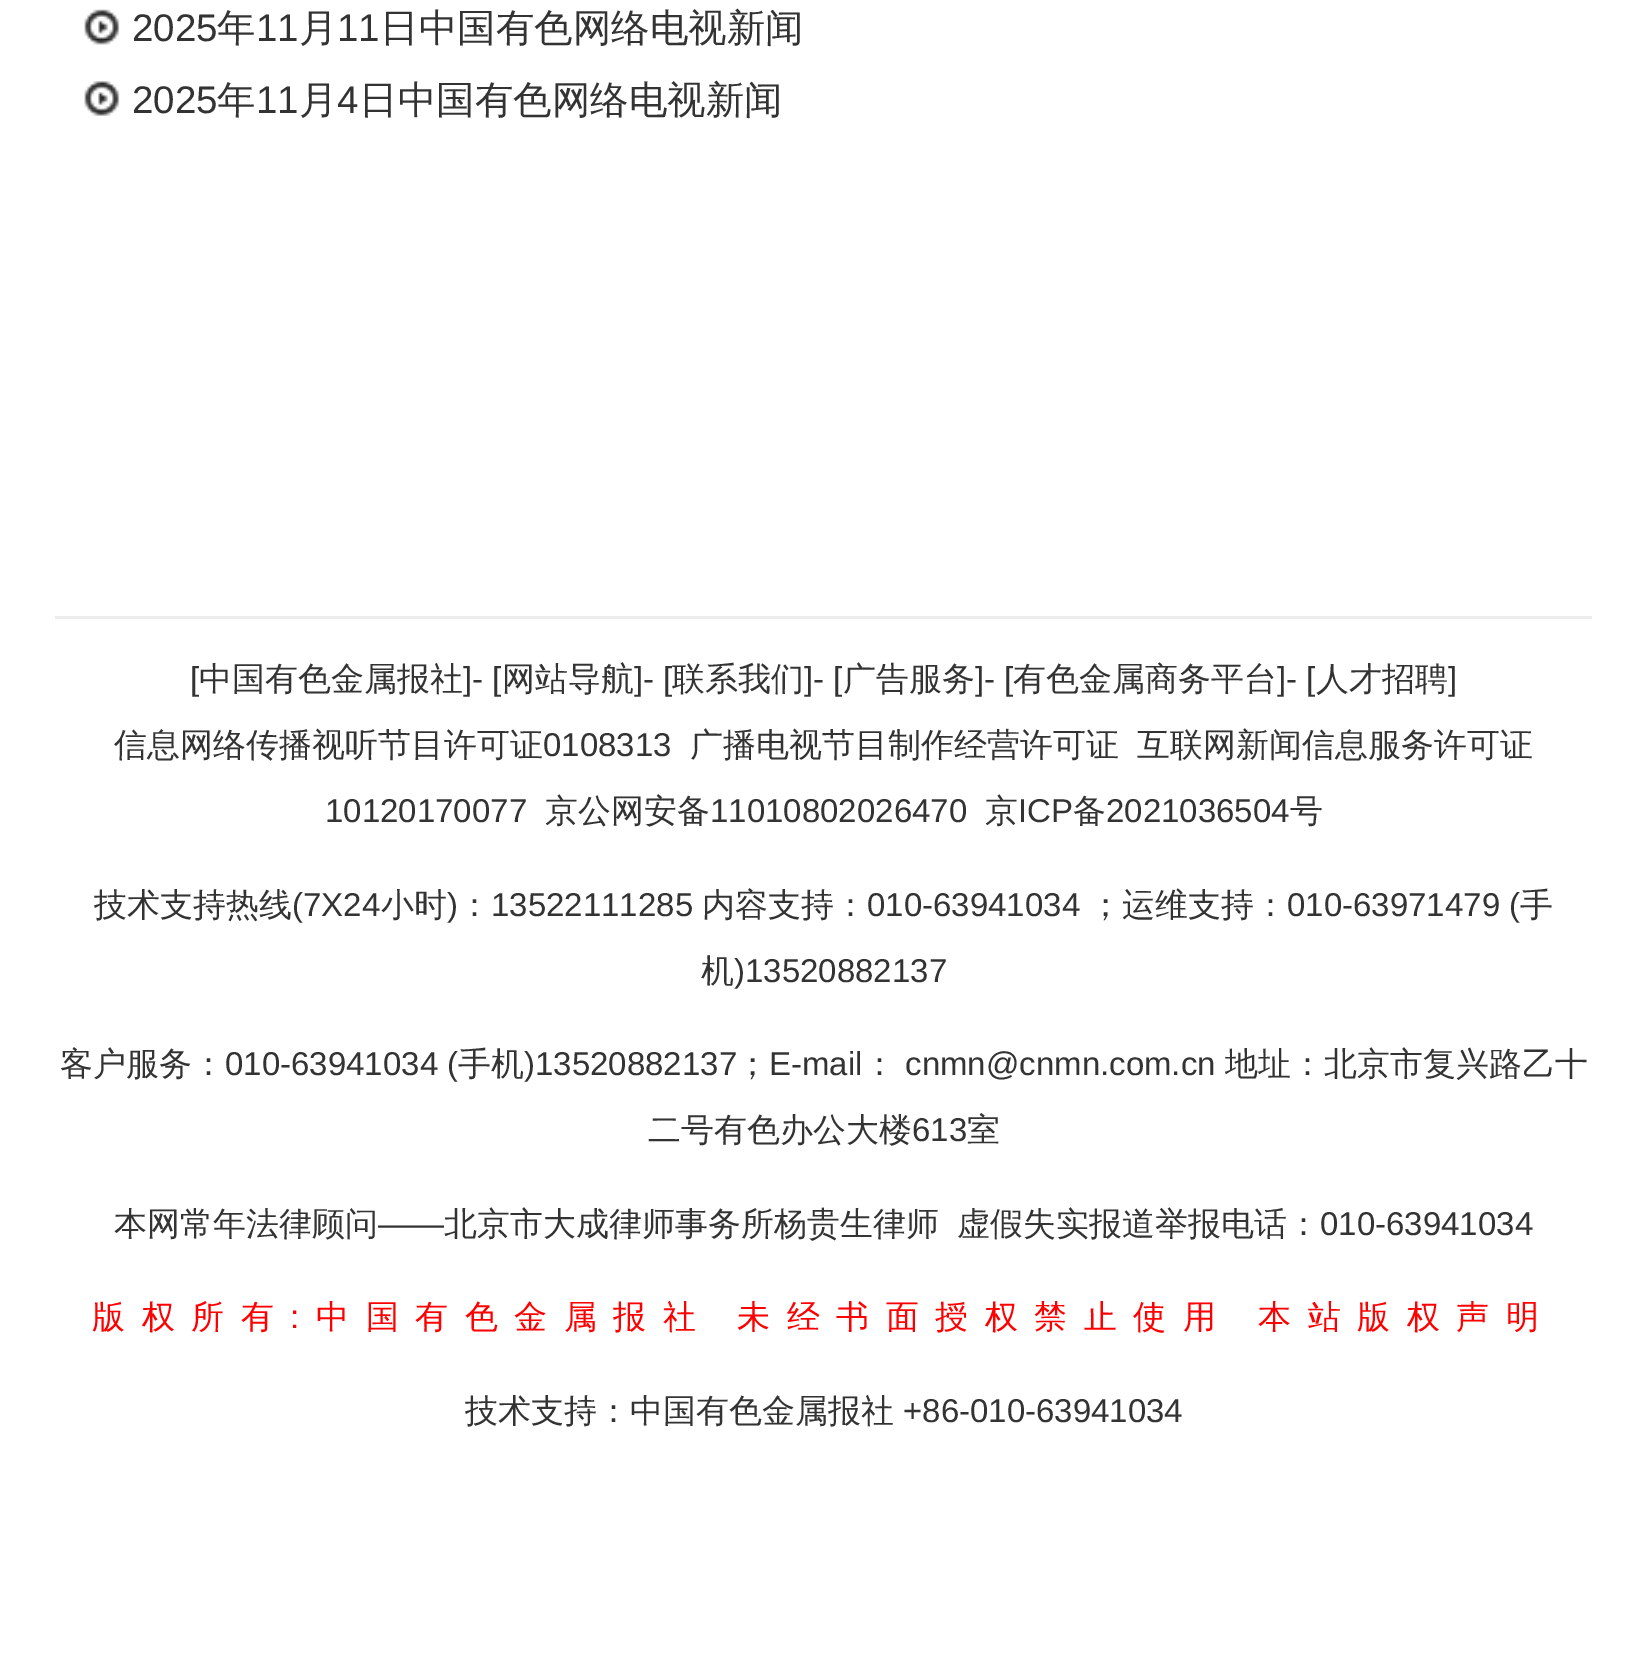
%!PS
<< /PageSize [1647 1662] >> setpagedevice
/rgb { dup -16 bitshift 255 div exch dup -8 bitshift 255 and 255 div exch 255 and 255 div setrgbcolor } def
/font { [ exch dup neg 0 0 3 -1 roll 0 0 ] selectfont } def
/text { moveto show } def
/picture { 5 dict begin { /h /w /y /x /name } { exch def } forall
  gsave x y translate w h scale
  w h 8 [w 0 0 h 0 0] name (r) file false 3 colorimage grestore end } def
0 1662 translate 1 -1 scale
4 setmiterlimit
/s1 { /LiberationSans-Regular 38.5 font 16#333333 rgb } def
/s2 { /WenQuanYiZenHei-Medium 38.5 font 16#333333 rgb } def
/s3 { /LiberationSans-Regular 33 font 16#333333 rgb } def
/s4 { /WenQuanYiZenHei-Medium 33 font 16#333333 rgb } def
16#FFFFFF rgb
0 0 1647 1662 rectfill
(pic1.raw) 84 9 36 36 picture
s1
(2025) 132 41 text
s2
(年) 217 41 text
s1
(11) 256 41 text
s2
(月) 299 41 text
s1
(11) 337 41 text
s2
(日中国有色网络电视新闻) 380 41 text
(pic2.raw) 84 81 36 35 picture
s1
(2025) 132 113 text
s2
(年) 217 113 text
s1
(11) 256 113 text
s2
(月) 299 113 text
s1
(4) 337 113 text
s2
(日中国有色网络电视新闻) 359 113 text
16#ECECEC rgb
55 616 1537 3 rectfill
s3
([) 190 690 text
s4
(中国有色金属报社) 199 690 text
s3
(]- [) 463 690 text
s4
(网站导航) 502 690 text
s3
(]- [) 634 690 text
s4
(联系我们) 672 690 text
s3
(]- [) 804 690 text
s4
(广告服务) 843 690 text
s3
(]- [) 975 690 text
s4
(有色金属商务平台) 1013 690 text
s3
(]- [) 1277 690 text
s4
(人才招聘) 1316 690 text
s3
(]) 1448 690 text
s4
(信息网络传播视听节目许可证) 114 756 text
s3
(0108313) 543 756 text
s4
(广播电视节目制作经营许可证) 690 756 text
(互联网新闻信息服务许可证) 1137 756 text
s3
(10120170077) 325 822 text
s4
(京公网安备) 545 822 text
s3
(11010802026470) 710 822 text
s4
(京) 985 822 text
s3
(ICP) 1018 822 text
s4
(备) 1073 822 text
s3
(2021036504) 1106 822 text
s4
(号) 1290 822 text
(技术支持热线) 94 916 text
s3
(\(7X24) 292 916 text
s4
(小时) 381 916 text
s3
(\)) 447 916 text
s4
(：) 458 916 text
s3
(13522111285) 491 916 text
s4
(内容支持：) 702 916 text
s3
(010-63941034) 867 916 text
s4
(；运维支持：) 1089 916 text
s3
(010-63971479 \() 1287 916 text
s4
(手) 1520 916 text
(机) 701 982 text
s3
(\)13520882137) 734 982 text
s4
(客户服务：) 60 1075 text
s3
(010-63941034 \() 225 1075 text
s4
(手机) 458 1075 text
s3
(\)13520882137) 524 1075 text
s4
(；) 736 1075 text
s3
(E-mail) 769 1075 text
s4
(：) 863 1075 text
s3
(cnmn@cnmn.com.cn) 905 1075 text
s4
(地址：北京市复兴路乙十) 1225 1075 text
(二号有色办公大楼) 648 1141 text
s3
(613) 912 1141 text
s4
(室) 967 1141 text
(本网常年法律顾问) 114 1235 text
s3
(——) 378 1235 text
s4
(北京市大成律师事务所杨贵生律师) 444 1235 text
(虚假失实报道举报电话：) 957 1235 text
s3
(010-63941034) 1320 1235 text
/WenQuanYiZenHei-Medium 33 font
16#FF0000 rgb
92 1328 moveto 16.5 0 (版权所有) ashow
/LiberationSans-Regular 33 font
290 1328 moveto 16.5 0 (:) ashow
/WenQuanYiZenHei-Medium 33 font
316 1328 moveto 16.5 0 (中国有色金属报社) ashow
737 1328 moveto 16.5 0 (未经书面授权禁止使用) ashow
1258 1328 moveto 16.5 0 (本站版权声明) ashow
s4
(技术支持：中国有色金属报社) 465 1422 text
s3
(+86-010-63941034) 903 1422 text
showpage
